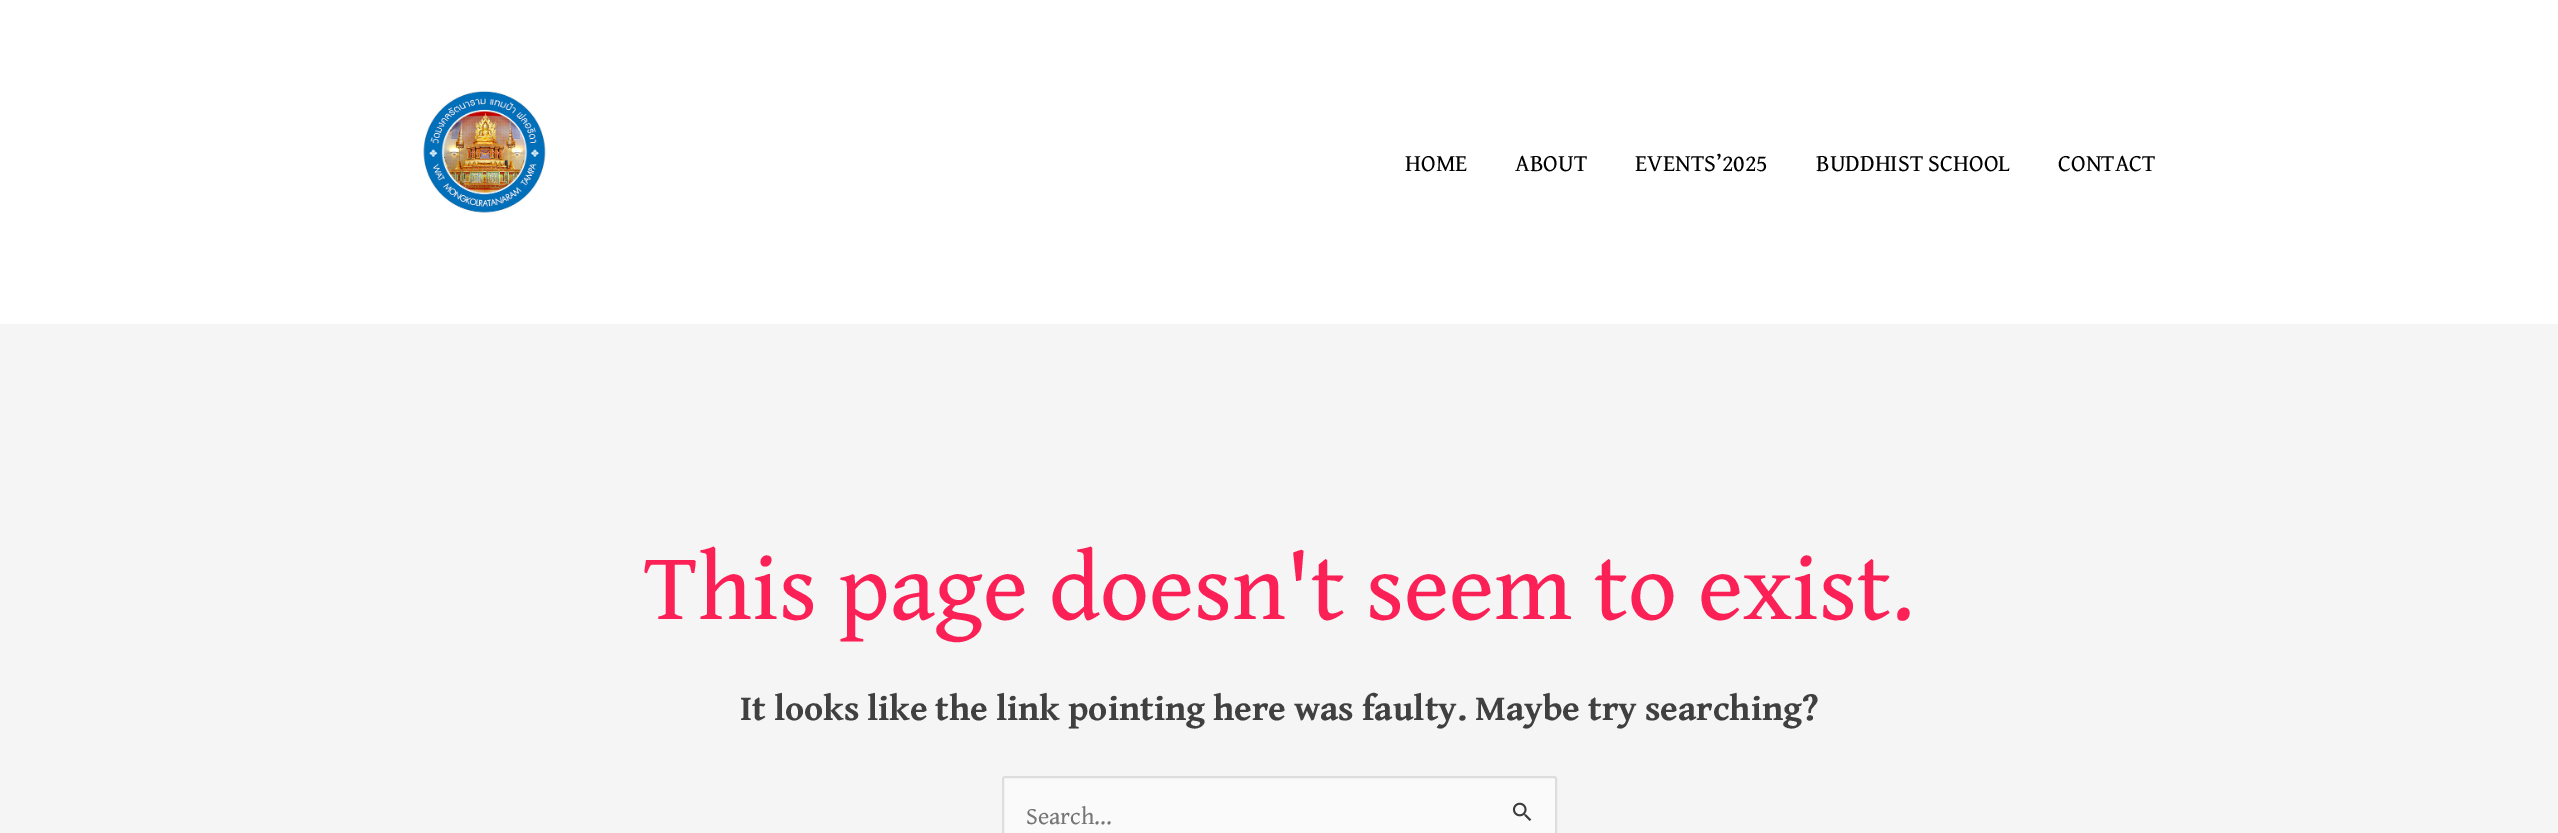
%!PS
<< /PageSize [2558 833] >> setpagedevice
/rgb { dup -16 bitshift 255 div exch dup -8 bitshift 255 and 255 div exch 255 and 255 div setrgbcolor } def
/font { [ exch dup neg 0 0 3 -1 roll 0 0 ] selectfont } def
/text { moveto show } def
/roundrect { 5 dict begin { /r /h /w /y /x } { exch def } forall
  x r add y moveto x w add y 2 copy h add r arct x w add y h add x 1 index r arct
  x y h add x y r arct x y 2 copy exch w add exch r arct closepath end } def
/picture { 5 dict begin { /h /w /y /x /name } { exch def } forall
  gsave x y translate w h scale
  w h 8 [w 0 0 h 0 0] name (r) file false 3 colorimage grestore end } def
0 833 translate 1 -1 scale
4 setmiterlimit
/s1 { /GentiumBookPlus-Regular 24 font 16#000000 rgb } def
/s2 { /GentiumBookPlus-Regular 96 font 16#FB2056 rgb } def
/s3 { /GentiumBookPlus-Bold 36 font 16#404040 rgb } def
/s4 { /GentiumBookPlus-Regular 24 font 16#757575 rgb } def
16#F5F5F5 rgb
0 0 2558 833 rectfill
16#FFFFFF rgb
0 0 2558 324 rectfill
(pic1.raw) 423 90 123 123 picture
s1
(HOME) 1405 171 text
(ABOUT) 1515 171 text
(EVENTS’2025) 1635 171 text
(BUDDHIST SCHOOL) 1816 171 text
(CONTACT) 2058 171 text
s2
(This page doesn't seem to exist.) 644 619 text
s3
(It looks like the link pointing here was faulty. Maybe try searching?) 740 720 text
16#FAFAFA rgb
1003 777 553 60 2 roundrect gsave fill grestore
16#DDDDDD rgb
2 setlinewidth
stroke
s4
(Search...) 1026 824 text
(pic2.raw) 1512 802 20 19 picture
showpage
